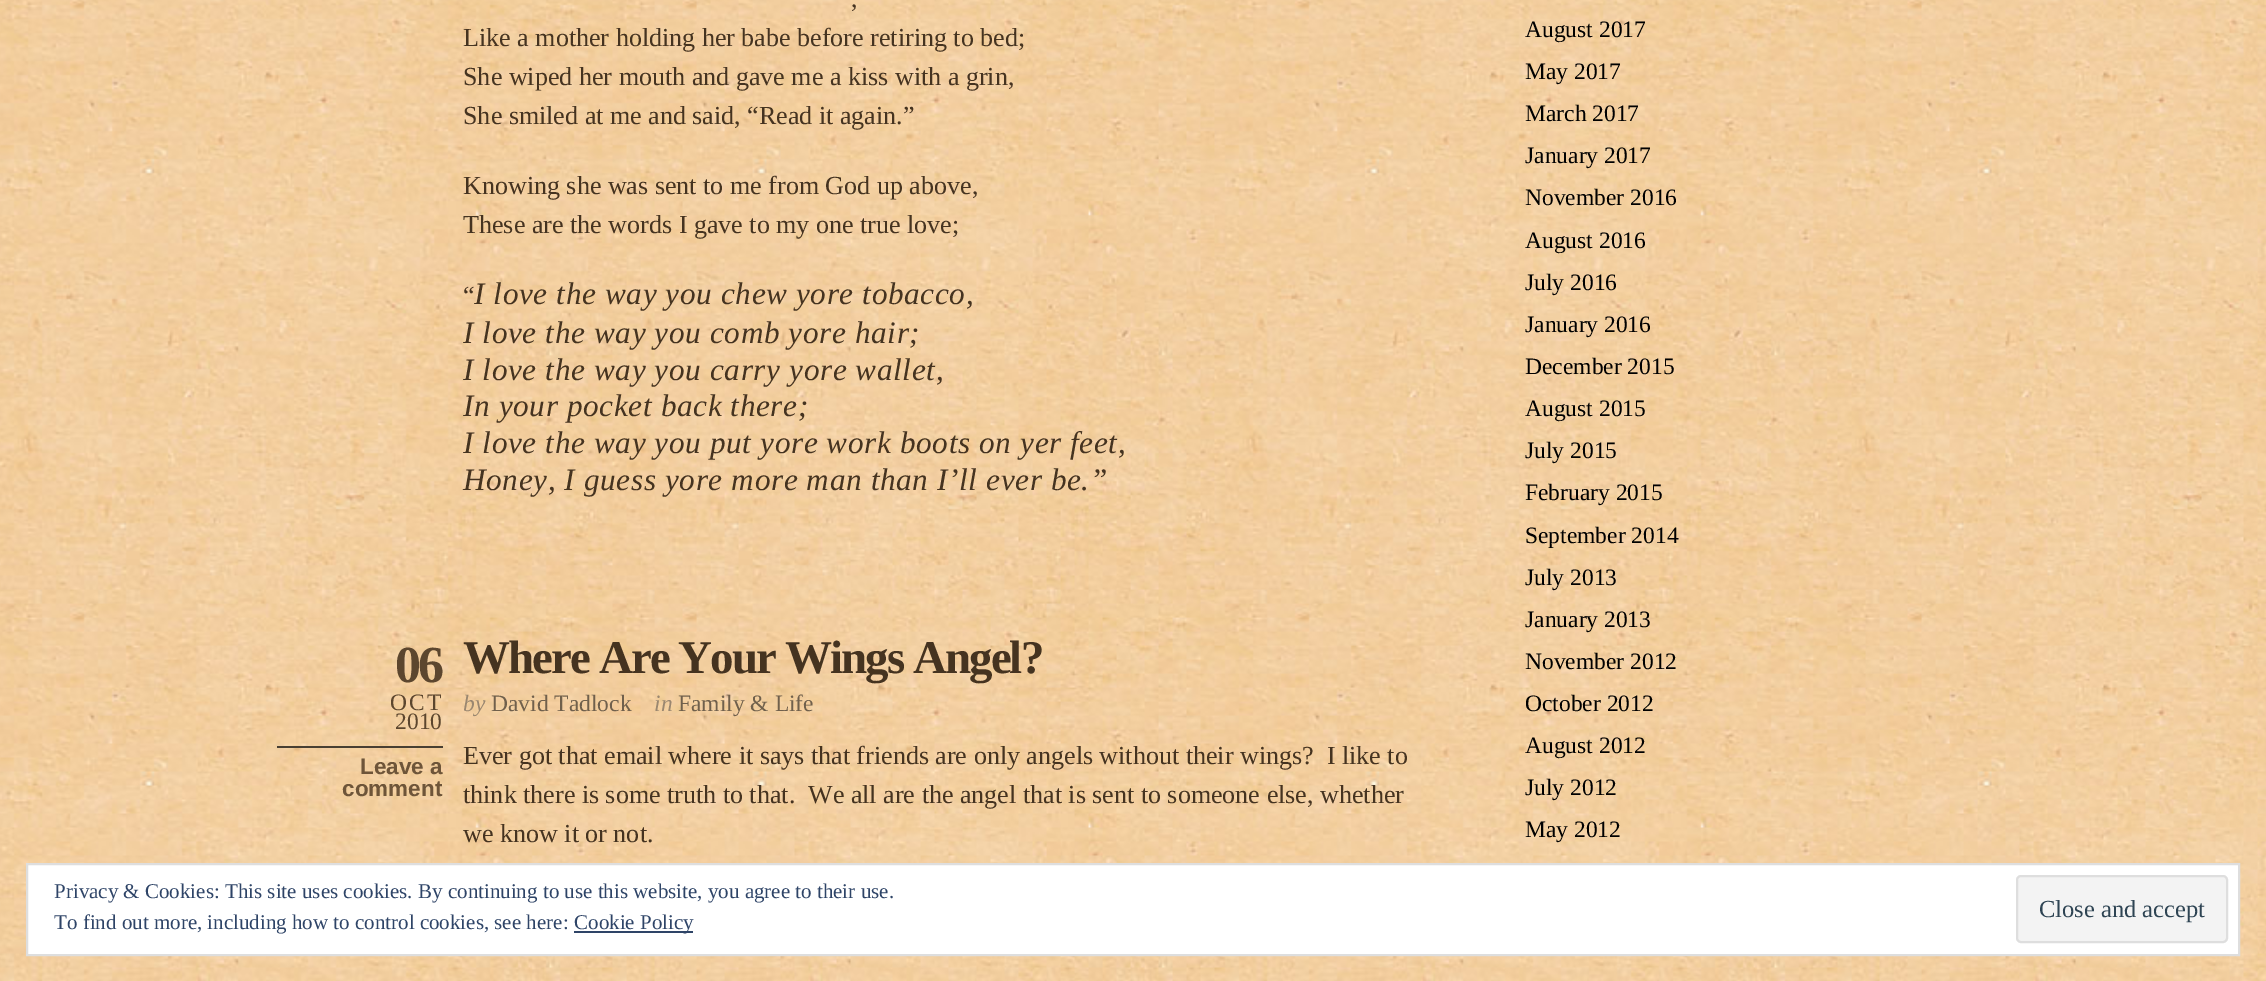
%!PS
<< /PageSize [2266 981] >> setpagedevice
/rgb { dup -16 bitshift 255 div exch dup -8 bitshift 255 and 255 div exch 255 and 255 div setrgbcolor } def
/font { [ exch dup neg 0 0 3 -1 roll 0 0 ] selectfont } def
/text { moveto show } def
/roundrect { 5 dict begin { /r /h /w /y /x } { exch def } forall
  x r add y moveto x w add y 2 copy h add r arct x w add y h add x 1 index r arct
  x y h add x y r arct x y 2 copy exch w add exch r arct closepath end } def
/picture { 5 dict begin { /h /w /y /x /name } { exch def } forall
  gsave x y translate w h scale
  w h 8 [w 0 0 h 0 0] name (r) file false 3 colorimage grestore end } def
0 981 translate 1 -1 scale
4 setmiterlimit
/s1 { /LiberationSerif-Regular 26.05 font 16#453320 rgb } def
/s2 { /LiberationSerif-Regular 23.5 font 16#5C462E rgb } def
/s3 { /LiberationSans-Bold 22.5 font 16#6E5539 rgb } def
/s4 { /LiberationSerif-Italic 23.5 font 16#9A8770 rgb } def
/s5 { /LiberationSerif-Regular 23.5 font 16#70604C rgb } def
/s6 { /LiberationSerif-Regular 23.5 font 16#000000 rgb } def
/s7 { /LiberationSerif-Regular 21 font 16#2E4467 rgb } def
/s8 { /LiberationSerif-Regular 24.5 font 16#2E4453 rgb } def
16#FFFFFF rgb
0 0 2266 981 rectfill
(pic1.raw) 0 0 2266 981 picture
s1
(,) 851 7 text
(Like a mother holding her babe before retiring to bed;) 463 46 text
(She wiped her mouth and gave me a kiss with a grin,) 463 85 text
(She smiled at me and said, “Read it again.”) 463 124 text
(Knowing she was sent to me from God up above,) 463 194 text
(These are the words I gave to my one true love;) 463 233 text
(“) 463 304 text
/LiberationSerif-Italic 31.25 font
474 304 moveto 0.62 0 (I love the way you chew yore tobacco,) ashow
463 343 moveto 0.62 0 (I love the way you comb yore hair;) ashow
463 380 moveto 0.62 0 (I love the way you carry yore wallet,) ashow
463 416 moveto 0.62 0 (In your pocket back there;) ashow
463 453 moveto 0.62 0 (I love the way you put yore work boots on yer feet,) ashow
463 490 moveto 0.62 0 (Honey, I guess yore more man than I’ll ever be.”) ashow
/LiberationSerif-Bold 52 font
16#5C462E rgb
395 682 moveto -3 0 (06) ashow
/LiberationSerif-Regular 23.5 font
390 710 moveto 2 0 (OCT) ashow
(2010) 395 729 text
16#483F32 rgb
277 746 166 2 rectfill
s3
(Leave a) 360 774 text
(comment) 342 796 text
/LiberationSerif-Bold 46.9 font
16#453320 rgb
463 673 moveto -1.9 0 (Where Are Your Wings Angel?) ashow
s4
(by) 463 711 text
s5
(David Tadlock) 491 711 text
s4
(in) 654 711 text
s5
(Family & Life) 678 711 text
s1
(Ever got that email where it says that friends are only angels without their wings?  I like to) 463 764 text
(think there is some truth to that.  We all are the angel that is sent to someone else, whether) 463 803 text
(we know it or not.) 463 842 text
s6
(August 2017) 1525 37 text
(May 2017) 1525 79 text
(March 2017) 1525 121 text
(January 2017) 1525 163 text
(November 2016) 1525 205 text
(August 2016) 1525 248 text
(July 2016) 1525 290 text
(January 2016) 1525 332 text
(December 2015) 1525 374 text
(August 2015) 1525 416 text
(July 2015) 1525 458 text
(February 2015) 1525 500 text
(September 2014) 1525 543 text
(July 2013) 1525 585 text
(January 2013) 1525 627 text
(November 2012) 1525 669 text
(October 2012) 1525 711 text
(August 2012) 1525 753 text
(July 2012) 1525 795 text
(May 2012) 1525 837 text
16#FFFFFF rgb
27 864 moveto 2239 864 lineto 2239 955 lineto 27 955 lineto closepath gsave fill grestore
16#DEDEDE rgb
2 setlinewidth
stroke
s7
(Privacy & Cookies: This site uses cookies. By continuing to use this website, you agree to their use.) 54 898 text
(To find out more, including how to control cookies, see here:) 54 929 text
574 931 119 2 rectfill
(Cookie Policy) 574 929 text
16#F3F3F3 rgb
2017 876 210 66 4 roundrect gsave fill grestore
16#DEDEDE rgb
stroke
s8
(Close and accept) 2039 917 text
showpage
